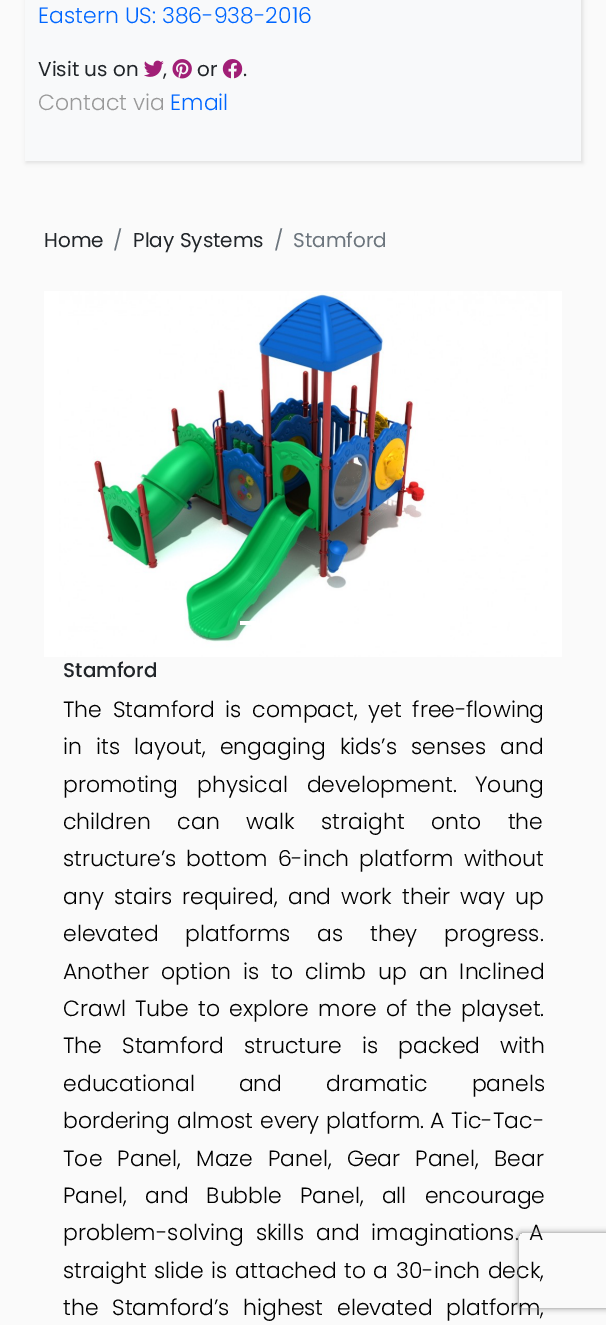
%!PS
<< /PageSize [606 1325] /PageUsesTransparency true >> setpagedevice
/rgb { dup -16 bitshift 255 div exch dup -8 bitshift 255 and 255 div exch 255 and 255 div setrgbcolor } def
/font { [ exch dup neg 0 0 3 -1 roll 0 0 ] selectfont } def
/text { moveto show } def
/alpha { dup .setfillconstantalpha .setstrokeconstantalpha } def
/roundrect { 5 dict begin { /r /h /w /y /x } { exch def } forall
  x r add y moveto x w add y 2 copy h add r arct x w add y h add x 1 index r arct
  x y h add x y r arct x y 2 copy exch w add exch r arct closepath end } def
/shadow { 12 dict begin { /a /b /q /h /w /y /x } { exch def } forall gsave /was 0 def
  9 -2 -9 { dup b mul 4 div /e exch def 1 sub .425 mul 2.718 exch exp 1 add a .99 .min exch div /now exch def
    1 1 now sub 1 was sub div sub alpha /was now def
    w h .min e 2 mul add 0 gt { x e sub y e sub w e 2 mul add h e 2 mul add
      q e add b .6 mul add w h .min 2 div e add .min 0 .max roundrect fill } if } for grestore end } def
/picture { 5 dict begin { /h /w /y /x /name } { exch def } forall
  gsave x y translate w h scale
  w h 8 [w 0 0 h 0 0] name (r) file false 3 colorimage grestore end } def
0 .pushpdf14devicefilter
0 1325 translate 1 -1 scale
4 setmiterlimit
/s1 { /Poppins-Light 22 font 16#0066FF rgb } def
/s2 { /Poppins-Regular 20 font 16#212529 rgb } def
/s3 { /Poppins-Light 22 font 16#999999 rgb } def
/s4 { /Poppins-Regular 20 font 16#6C757D rgb } def
/s5 { /Poppins-Medium 20 font 16#212529 rgb } def
/s6 { /Poppins-Light 22 font 16#000000 rgb } def
16#FAFAFA rgb
0 0 606 1325 rectfill
16#000000 rgb
26 -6 557 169 0 2 0.1 shadow
16#F8F9FA rgb
25 0 556 161 rectfill
s1
(Eastern US: 386-938-2016) 38 23 text
s2
(Visit us on) 38 76 text
(pic1.raw) 144 60 20 17 picture
(,) 163 76 text
(pic2.raw) 172 59 20 20 picture
(or) 197 76 text
(pic3.raw) 222 59 21 20 picture
(.) 243 76 text
s3
(Contact via) 38 110 text
s1
(Email) 170 110 text
s2
(Home) 44 247 text
s4
(/) 113 247 text
s2
(Play Systems) 133 247 text
s4
(/) 274 247 text
(Stamford) 293 247 text
(pic4.raw) 44 291 518 366 picture
16#FFFFFF rgb
240 621 16 4 rectfill
s5
(Stamford) 63 677 text
/Poppins-Light 22 font
16#000000 rgb
63 717 moveto 4.75 0 32 (The Stamford is compact, yet free-flowing) widthshow
63 754 moveto 8 0 32 (in its layout, engaging kids’s senses and) widthshow
63 792 moveto 13 0 32 (promoting physical development.) widthshow
(Young) 475 792 text
63 829 moveto 20.5 0 32 (children can walk straight onto the) widthshow
63 866 moveto 4 0 32 (structure’s bottom 6-inch platform without) widthshow
63 904 moveto 4 0 32 (any stairs required, and work their way up) widthshow
63 941 moveto 20.5 0 32 (elevated platforms as they progress.) widthshow
63 979 moveto 6 0 32 (Another option is to climb up an Inclined) widthshow
63 1016 moveto 3.25 0 32 (Crawl Tube to explore more of the playset.) widthshow
63 1053 moveto 14 0 32 (The Stamford structure is packed with) widthshow
63 1091 moveto 38 0 32 (educational and dramatic panels) widthshow
63 1128 moveto 1 0 32 (bordering almost every platform.) widthshow
430 1128 moveto 1 0 32 (A Tic-Tac-) widthshow
63 1166 moveto 9 0 32 (Toe Panel, Maze Panel, Gear Panel, Bear) widthshow
63 1203 moveto 12 0 32 (Panel, and Bubble Panel, all encourage) widthshow
63 1240 moveto 6 0 32 (problem-solving skills and imaginations.) widthshow
(A) 529 1240 text
63 1278 moveto 1.5 0 32 (straight slide is attached to a 30-inch deck,) widthshow
63 1315 moveto 7.5 0 32 (the Stamford’s highest elevated platform,) widthshow
gsave
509 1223 moveto 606 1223 lineto 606 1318 lineto 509 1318 lineto closepath 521.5 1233 moveto 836.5 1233 lineto 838 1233 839 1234 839 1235.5 curveto 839 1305.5 lineto 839 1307 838 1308 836.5 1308 curveto 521.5 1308 lineto 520 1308 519 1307 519 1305.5 curveto 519 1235.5 lineto 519 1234 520 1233 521.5 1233 curveto closepath eoclip newpath
16#808080 rgb
519 1233 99 75 2.5 3 1 shadow
grestore
.poppdf14devicefilter showpage
